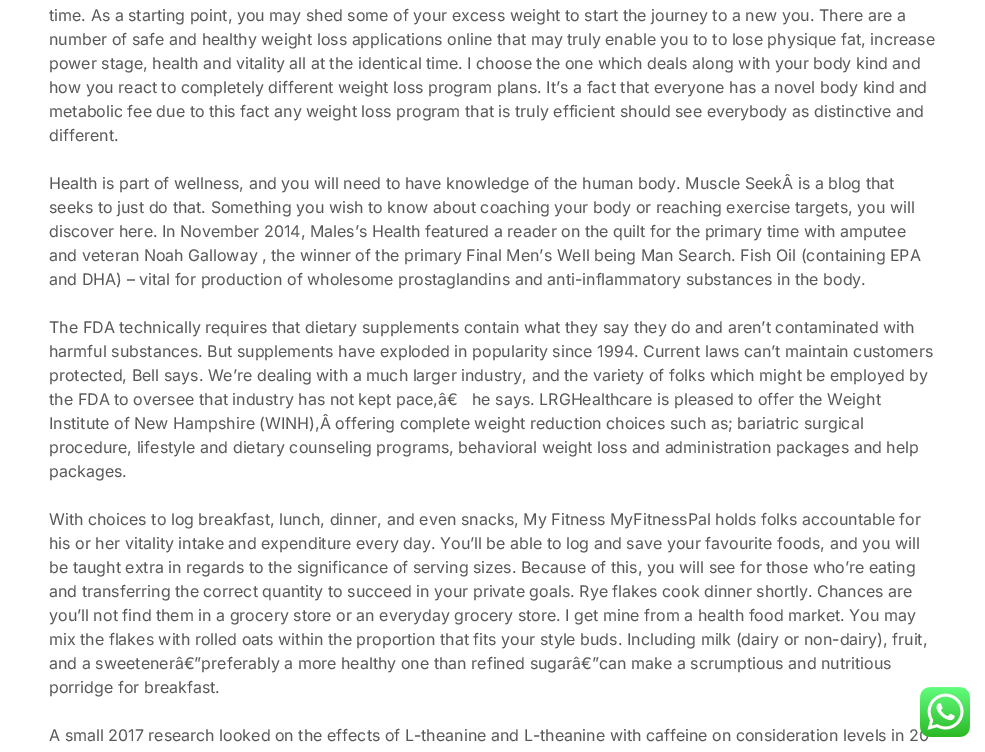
%!PS
<< /PageSize [985 752] >> setpagedevice
/rgb { dup -16 bitshift 255 div exch dup -8 bitshift 255 and 255 div exch 255 and 255 div setrgbcolor } def
/font { [ exch dup neg 0 0 3 -1 roll 0 0 ] selectfont } def
/text { moveto show } def
/picture { 5 dict begin { /h /w /y /x /name } { exch def } forall
  gsave x y translate w h scale
  w h 8 [w 0 0 h 0 0] name (r) file false 3 colorimage grestore end } def
0 752 translate 1 -1 scale
4 setmiterlimit
/s1 { /Inter-Regular 16 font 16#585858 rgb } def
16#FFFFFF rgb
0 0 985 752 rectfill
s1
(time. As a starting point, you may shed some of your excess weight to start the journey to a new you. There are a) 49 21 text
(number of safe and healthy weight loss applications online that may truly enable you to to lose physique fat, increase) 49 45 text
(power stage, health and vitality all at the identical time. I choose the one which deals along with your body kind and) 49 69 text
(how you react to completely different weight loss program plans. It’s a fact that everyone has a novel body kind and) 49 93 text
(metabolic fee due to this fact any weight loss program that is truly efficient should see everybody as distinctive and) 49 117 text
(different.) 49 141 text
(Health is part of wellness, and you will need to have knowledge of the human body. Muscle SeekÂ is a blog that) 49 189 text
(seeks to just do that. Something you wish to know about coaching your body or reaching exercise targets, you will) 49 213 text
(discover here. In November 2014, Males’s Health featured a reader on the quilt for the primary time with amputee) 49 237 text
(and veteran Noah Galloway , the winner of the primary Final Men’s Well being Man Search. Fish Oil \(containing EPA) 49 261 text
(and DHA\) – vital for production of wholesome prostaglandins and anti-inflammatory substances in the body.) 49 285 text
(The FDA technically requires that dietary supplements contain what they say they do and aren’t contaminated with) 49 333 text
(harmful substances. But supplements have exploded in popularity since 1994. Current laws can’t maintain customers) 49 357 text
(protected, Bell says. We’re dealing with a much larger industry, and the variety of folks which might be employed by) 49 381 text
(the FDA to oversee that industry has not kept pace,â€) 49 405 text
(he says. LRGHealthcare is pleased to offer the Weight) 472 405 text
(Institute of New Hampshire \(WINH\),Â offering complete weight reduction choices such as; bariatric surgical) 49 429 text
(procedure, lifestyle and dietary counseling programs, behavioral weight loss and administration packages and help) 49 453 text
(packages.) 49 477 text
(With choices to log breakfast, lunch, dinner, and even snacks, My Fitness MyFitnessPal holds folks accountable for) 49 525 text
(his or her vitality intake and expenditure every day. You’ll be able to log and save your favourite foods, and you will) 49 549 text
(be taught extra in regards to the significance of serving sizes. Because of this, you will see for those who’re eating) 49 573 text
(and transferring the correct quantity to succeed in your private goals. Rye flakes cook dinner shortly. Chances are) 49 597 text
(you’ll not find them in a grocery store or an everyday grocery store. I get mine from a health food market. You may) 49 621 text
(mix the flakes with rolled oats within the proportion that fits your style buds. Including milk \(dairy or non-dairy\), fruit,) 49 645 text
(and a sweetenerâ€”preferably a more healthy one than refined sugarâ€”can make a scrumptious and nutritious) 49 669 text
(porridge for breakfast.) 49 693 text
(A small 2017 research looked on the effects of L-theanine and L-theanine with caffeine on consideration levels in 20) 49 741 text
(pic1.raw) 920 687 50 50 picture
showpage
